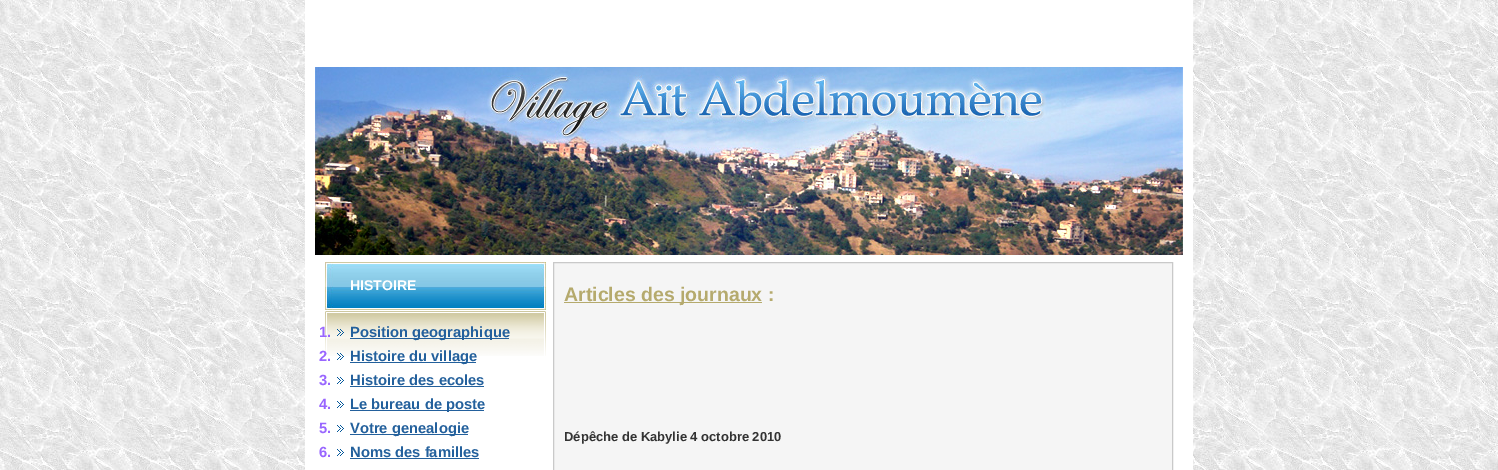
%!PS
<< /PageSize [1498 470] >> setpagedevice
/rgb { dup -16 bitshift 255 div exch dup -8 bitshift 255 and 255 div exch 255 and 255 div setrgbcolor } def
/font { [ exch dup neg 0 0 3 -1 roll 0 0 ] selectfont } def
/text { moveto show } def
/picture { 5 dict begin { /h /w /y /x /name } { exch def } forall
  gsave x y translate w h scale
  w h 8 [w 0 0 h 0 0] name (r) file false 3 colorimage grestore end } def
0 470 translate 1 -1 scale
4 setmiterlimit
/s1 { /LiberationSans-Bold 14 font 16#FFFFFF rgb } def
/s2 { /LiberationSans-Bold 14.75 font 16#9966FF rgb } def
/s3 { /LiberationSans-Bold 14.75 font 16#23609C rgb } def
/s4 { /LiberationSans-Bold 19.5 font 16#B5AA6D rgb } def
/s5 { /LiberationSans-Bold 13 font 16#333333 rgb } def
16#FFFFFF rgb
0 0 1498 470 rectfill
(pic1.raw) 0 0 1498 470 picture
1183 0 10 470 rectfill
305 0 10 470 rectfill
315 0 868 67 rectfill
(pic2.raw) 315 67 868 188 picture
315 255 868 215 rectfill
(pic3.raw) 325 262 221 48 picture
s1
(HISTOIRE) 350 290 text
(pic4.raw) 325 311 221 45 picture
(pic5.raw) 337 329 7 7 picture
s2
(1.) 319 337 text
16#23609C rgb
350 338 159 1 rectfill
(Position geographique) 350 337 text
(pic6.raw) 337 353 7 7 picture
s2
(2.) 319 361 text
16#23609C rgb
350 362 126 1 rectfill
(Histoire du village) 350 361 text
(pic7.raw) 337 377 7 7 picture
s2
(3.) 319 385 text
s3
(Histoire des ecoles) 350 385 text
350 386 134 1 rectfill
(pic7.raw) 337 401 7 7 picture
s2
(4.) 319 409 text
16#23609C rgb
350 410 134 1 rectfill
(Le bureau de poste) 350 409 text
(pic7.raw) 337 425 7 7 picture
s2
(5.) 319 433 text
16#23609C rgb
350 434 118 1 rectfill
(Votre genealogie) 350 433 text
(pic7.raw) 337 449 7 7 picture
s2
(6.) 319 457 text
s3
(Noms des familles) 350 457 text
350 458 129 1 rectfill
16#F5F5F5 rgb
553.5 262.5 moveto 1172.5 262.5 lineto 1172.5 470.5 lineto 553.5 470.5 lineto closepath gsave fill grestore
16#C9C9C9 rgb
stroke
16#B5AA6D rgb
564 302 198 1 rectfill
s4
(Articles des journaux :) 564 301 text
s5
(Dépêche de Kabylie 4 octobre 2010) 564 441 text
showpage
